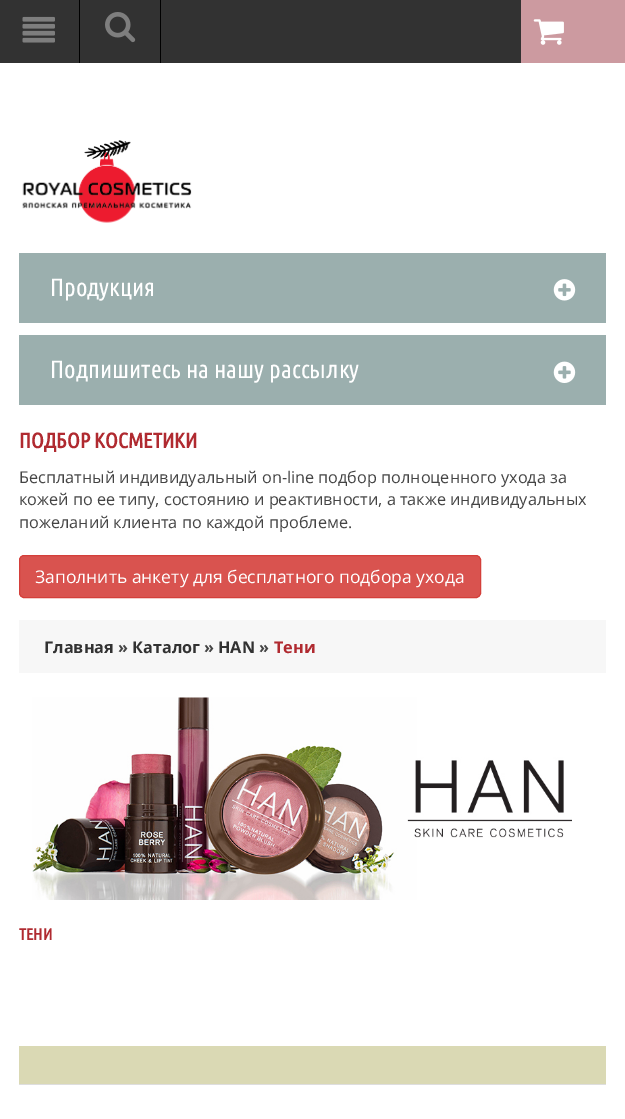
%!PS
<< /PageSize [625 1119] >> setpagedevice
/rgb { dup -16 bitshift 255 div exch dup -8 bitshift 255 and 255 div exch 255 and 255 div setrgbcolor } def
/font { [ exch dup neg 0 0 3 -1 roll 0 0 ] selectfont } def
/text { moveto show } def
/roundrect { 5 dict begin { /r /h /w /y /x } { exch def } forall
  x r add y moveto x w add y 2 copy h add r arct x w add y h add x 1 index r arct
  x y h add x y r arct x y 2 copy exch w add exch r arct closepath end } def
/picture { 5 dict begin { /h /w /y /x /name } { exch def } forall
  gsave x y translate w h scale
  w h 8 [w 0 0 h 0 0] name (r) file false 3 colorimage grestore end } def
0 1119 translate 1 -1 scale
4 setmiterlimit
/s1 { /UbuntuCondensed-Regular 25 font 16#FFFFFF rgb } def
/s2 { /UbuntuCondensed-Bold 21.25 font 16#B02A30 rgb } def
/s3 { /OpenSans-Regular 16.25 font 16#444444 rgb } def
/s4 { /OpenSans-Regular 17.5 font 16#FFFFFF rgb } def
/s5 { /OpenSans-Bold 16.25 font 16#323232 rgb } def
/s6 { /OpenSans-Bold 16.25 font 16#444444 rgb } def
/s7 { /OpenSans-Bold 16.25 font 16#B02A30 rgb } def
/s8 { /UbuntuCondensed-Bold 16.25 font 16#B02A30 rgb } def
16#FFFFFF rgb
0 0 625 1119 rectfill
16#323232 rgb
0 0 521 63 rectfill
16#000000 rgb
79 0 1 63 rectfill
(pic1.raw) 22 16 33 27 picture
160 0 1 63 rectfill
(pic2.raw) 105 12 31 31 picture
16#CC9AA0 rgb
521 0 104 63 rectfill
(pic3.raw) 533 19 31 26 picture
(pic4.raw) 22 140 170 83 picture
16#9BAFAE rgb
19 253 587 70 rectfill
s1
(Продукция) 50 296 text
(pic5.raw) 553 279 23 22 picture
16#9BAFAE rgb
19 335 587 70 rectfill
s1
(Подпишитесь на нашу рассылку) 50 378 text
(pic6.raw) 553 361 23 22 picture
s2
(ПОДБОР КОСМЕТИКИ) 19 448 text
s3
(Бесплатный индивидуальный on-line подбор полноценного ухода за) 19 483 text
(кожей по ее типу, состоянию и реактивности, а также индивидуальных) 19 505 text
(пожеланий клиента по каждой проблеме.) 19 528 text
16#D9534F rgb
19.5 555.5 461 42 4.5 roundrect gsave fill grestore
16#D43F3A rgb
stroke
s4
(Заполнить анкету для бесплатного подбора ухода) 35 583 text
16#F7F7F7 rgb
19 620 587 53 rectfill
s5
(Главная) 44 653 text
s6
(») 118 653 text
s5
(Каталог) 132 653 text
s6
(») 204 653 text
s5
(HAN) 218 653 text
s6
(») 259 653 text
s7
(Тени) 274 653 text
(pic7.raw) 32 697 540 203 picture
s8
(ТЕНИ) 19 940 text
16#DAD9B4 rgb
19 1046 587 38 rectfill
16#DEDEDE rgb
19 1084 587 1 rectfill
showpage
